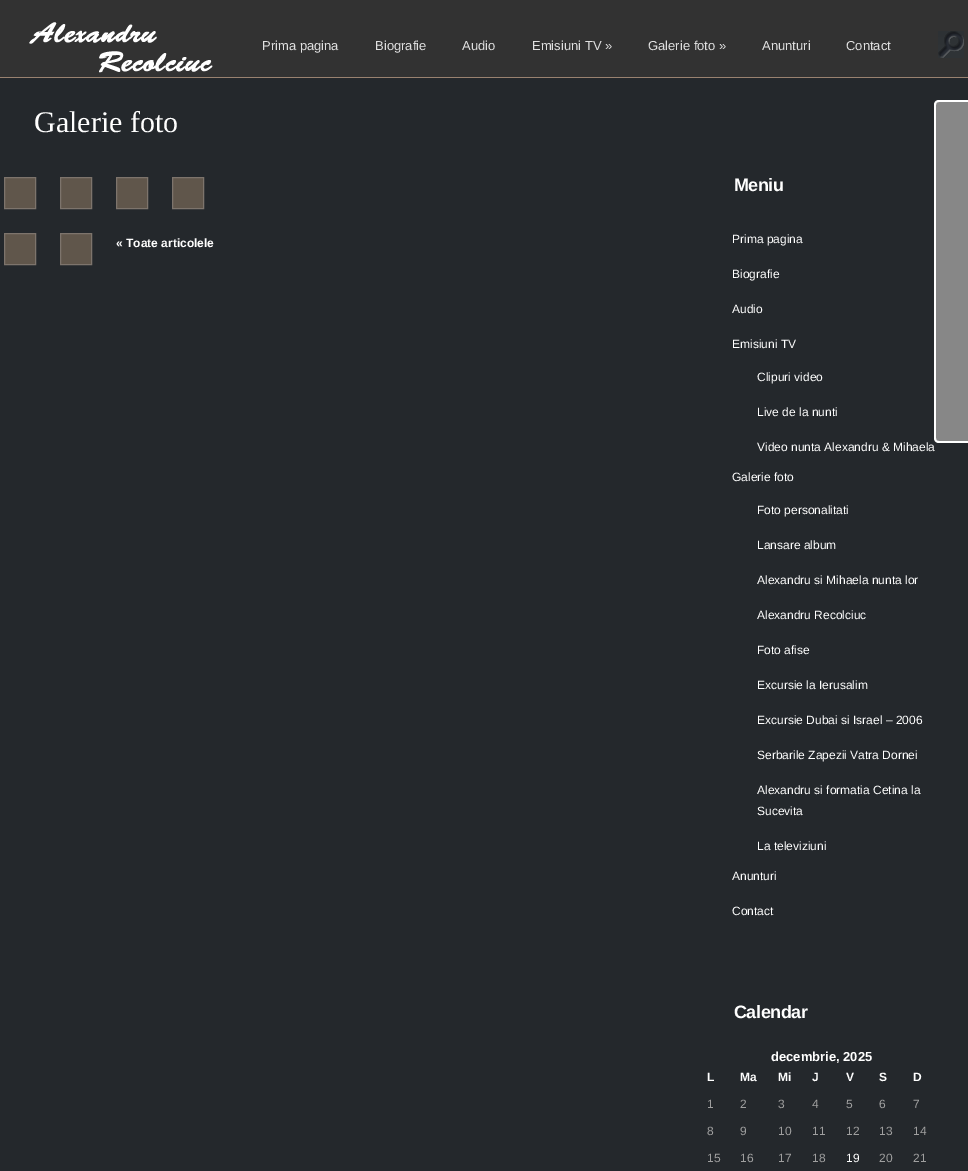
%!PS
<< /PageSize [968 1171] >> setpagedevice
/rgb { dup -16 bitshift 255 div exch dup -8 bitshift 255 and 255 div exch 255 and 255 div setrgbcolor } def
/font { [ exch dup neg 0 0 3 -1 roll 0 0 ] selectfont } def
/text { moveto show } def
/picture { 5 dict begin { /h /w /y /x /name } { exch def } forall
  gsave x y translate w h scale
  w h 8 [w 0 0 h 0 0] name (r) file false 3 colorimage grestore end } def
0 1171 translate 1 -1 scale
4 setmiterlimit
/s1 { /LiberationSans-Regular 13 font 16#E0E0E0 rgb } def
/s2 { /LiberationSerif-Regular 30 font 16#FFFFFF rgb } def
/s3 { /LiberationSans-Bold 12 font 16#FFFFFF rgb } def
/s4 { /LiberationSans-Regular 12 font 16#FFFFFF rgb } def
/s5 { /LiberationSans-Bold 13 font 16#FFFFFF rgb } def
/s6 { /LiberationSans-Regular 12 font 16#9F9F9F rgb } def
16#24282C rgb
0 0 968 1171 rectfill
16#323232 rgb
0 0 968 77 rectfill
16#998270 rgb
0 77 968 1 rectfill
(pic1.raw) 29 22 184 51 picture
s1
(Prima pagina) 262 50 text
(Biografie) 375 50 text
(Audio) 462 50 text
(Emisiuni TV ») 532 50 text
(Galerie foto ») 648 50 text
(Anunturi) 762 50 text
(Contact) 846 50 text
(pic2.raw) 938 31 26 27 picture
s2
(Galerie foto) 34 132 text
16#60564B rgb
4.5 177.5 moveto 35.5 177.5 lineto 35.5 208.5 lineto 4.5 208.5 lineto closepath gsave fill grestore
16#7D746C rgb
stroke
16#60564B rgb
60.5 177.5 moveto 91.5 177.5 lineto 91.5 208.5 lineto 60.5 208.5 lineto closepath gsave fill grestore
16#7D746C rgb
stroke
16#60564B rgb
116.5 177.5 moveto 147.5 177.5 lineto 147.5 208.5 lineto 116.5 208.5 lineto closepath gsave fill grestore
16#7D746C rgb
stroke
16#60564B rgb
172.5 177.5 moveto 203.5 177.5 lineto 203.5 208.5 lineto 172.5 208.5 lineto closepath gsave fill grestore
16#7D746C rgb
stroke
16#60564B rgb
4.5 233.5 moveto 35.5 233.5 lineto 35.5 264.5 lineto 4.5 264.5 lineto closepath gsave fill grestore
16#7D746C rgb
stroke
16#60564B rgb
60.5 233.5 moveto 91.5 233.5 lineto 91.5 264.5 lineto 60.5 264.5 lineto closepath gsave fill grestore
16#7D746C rgb
stroke
s3
(« Toate articolele) 116 247 text
/LiberationSans-Bold 18 font
734 191 moveto -0.5 0 (Meniu) ashow
s4
(Prima pagina) 732 243 text
(Biografie) 732 278 text
(Audio) 732 313 text
(Emisiuni TV) 732 348 text
(Clipuri video) 757 381 text
(Live de la nunti) 757 416 text
(Video nunta Alexandru & Mihaela) 757 451 text
(Galerie foto) 732 481 text
(Foto personalitati) 757 514 text
(Lansare album) 757 549 text
(Alexandru si Mihaela nunta lor) 757 584 text
(Alexandru Recolciuc) 757 619 text
(Foto afise) 757 654 text
(Excursie la Ierusalim) 757 689 text
(Excursie Dubai si Israel – 2006) 757 724 text
(Serbarile Zapezii Vatra Dornei) 757 759 text
(Alexandru si formatia Cetina la) 757 794 text
(Sucevita) 757 815 text
(La televiziuni) 757 850 text
(Anunturi) 732 880 text
(Contact) 732 915 text
/LiberationSans-Bold 18 font
734 1018 moveto -0.5 0 (Calendar) ashow
s5
(decembrie, 2025) 771 1061 text
s3
(L) 707 1081 text
(Ma) 740 1081 text
(Mi) 778 1081 text
(J) 812 1081 text
(V) 846 1081 text
(S) 879 1081 text
(D) 913 1081 text
s6
(1) 707 1108 text
(2) 740 1108 text
(3) 778 1108 text
(4) 812 1108 text
(5) 846 1108 text
(6) 879 1108 text
(7) 913 1108 text
(8) 707 1135 text
(9) 740 1135 text
(10) 778 1135 text
(11) 812 1135 text
(12) 846 1135 text
(13) 879 1135 text
(14) 913 1135 text
(15) 707 1162 text
(16) 740 1162 text
(17) 778 1162 text
(18) 812 1162 text
s4
(19) 846 1162 text
s6
(20) 879 1162 text
(21) 913 1162 text
16#878787 rgb
939 102 moveto 968 102 lineto 968 441 lineto 939 441 lineto 937.5 441 936 439.5 936 438 curveto 936 105 lineto 936 103.5 937.5 102 939 102 curveto closepath fill
16#FFFFFF rgb
939 100 moveto 968 100 lineto 968 443 lineto 939 443 lineto 936 443 934 441 934 438 curveto 934 105 lineto 934 102 936 100 939 100 curveto closepath 939 102 moveto 968 102 lineto 968 441 lineto 939 441 lineto 937 441 936 440 936 438 curveto 936 105 lineto 936 103 937 102 939 102 curveto closepath eofill
showpage
